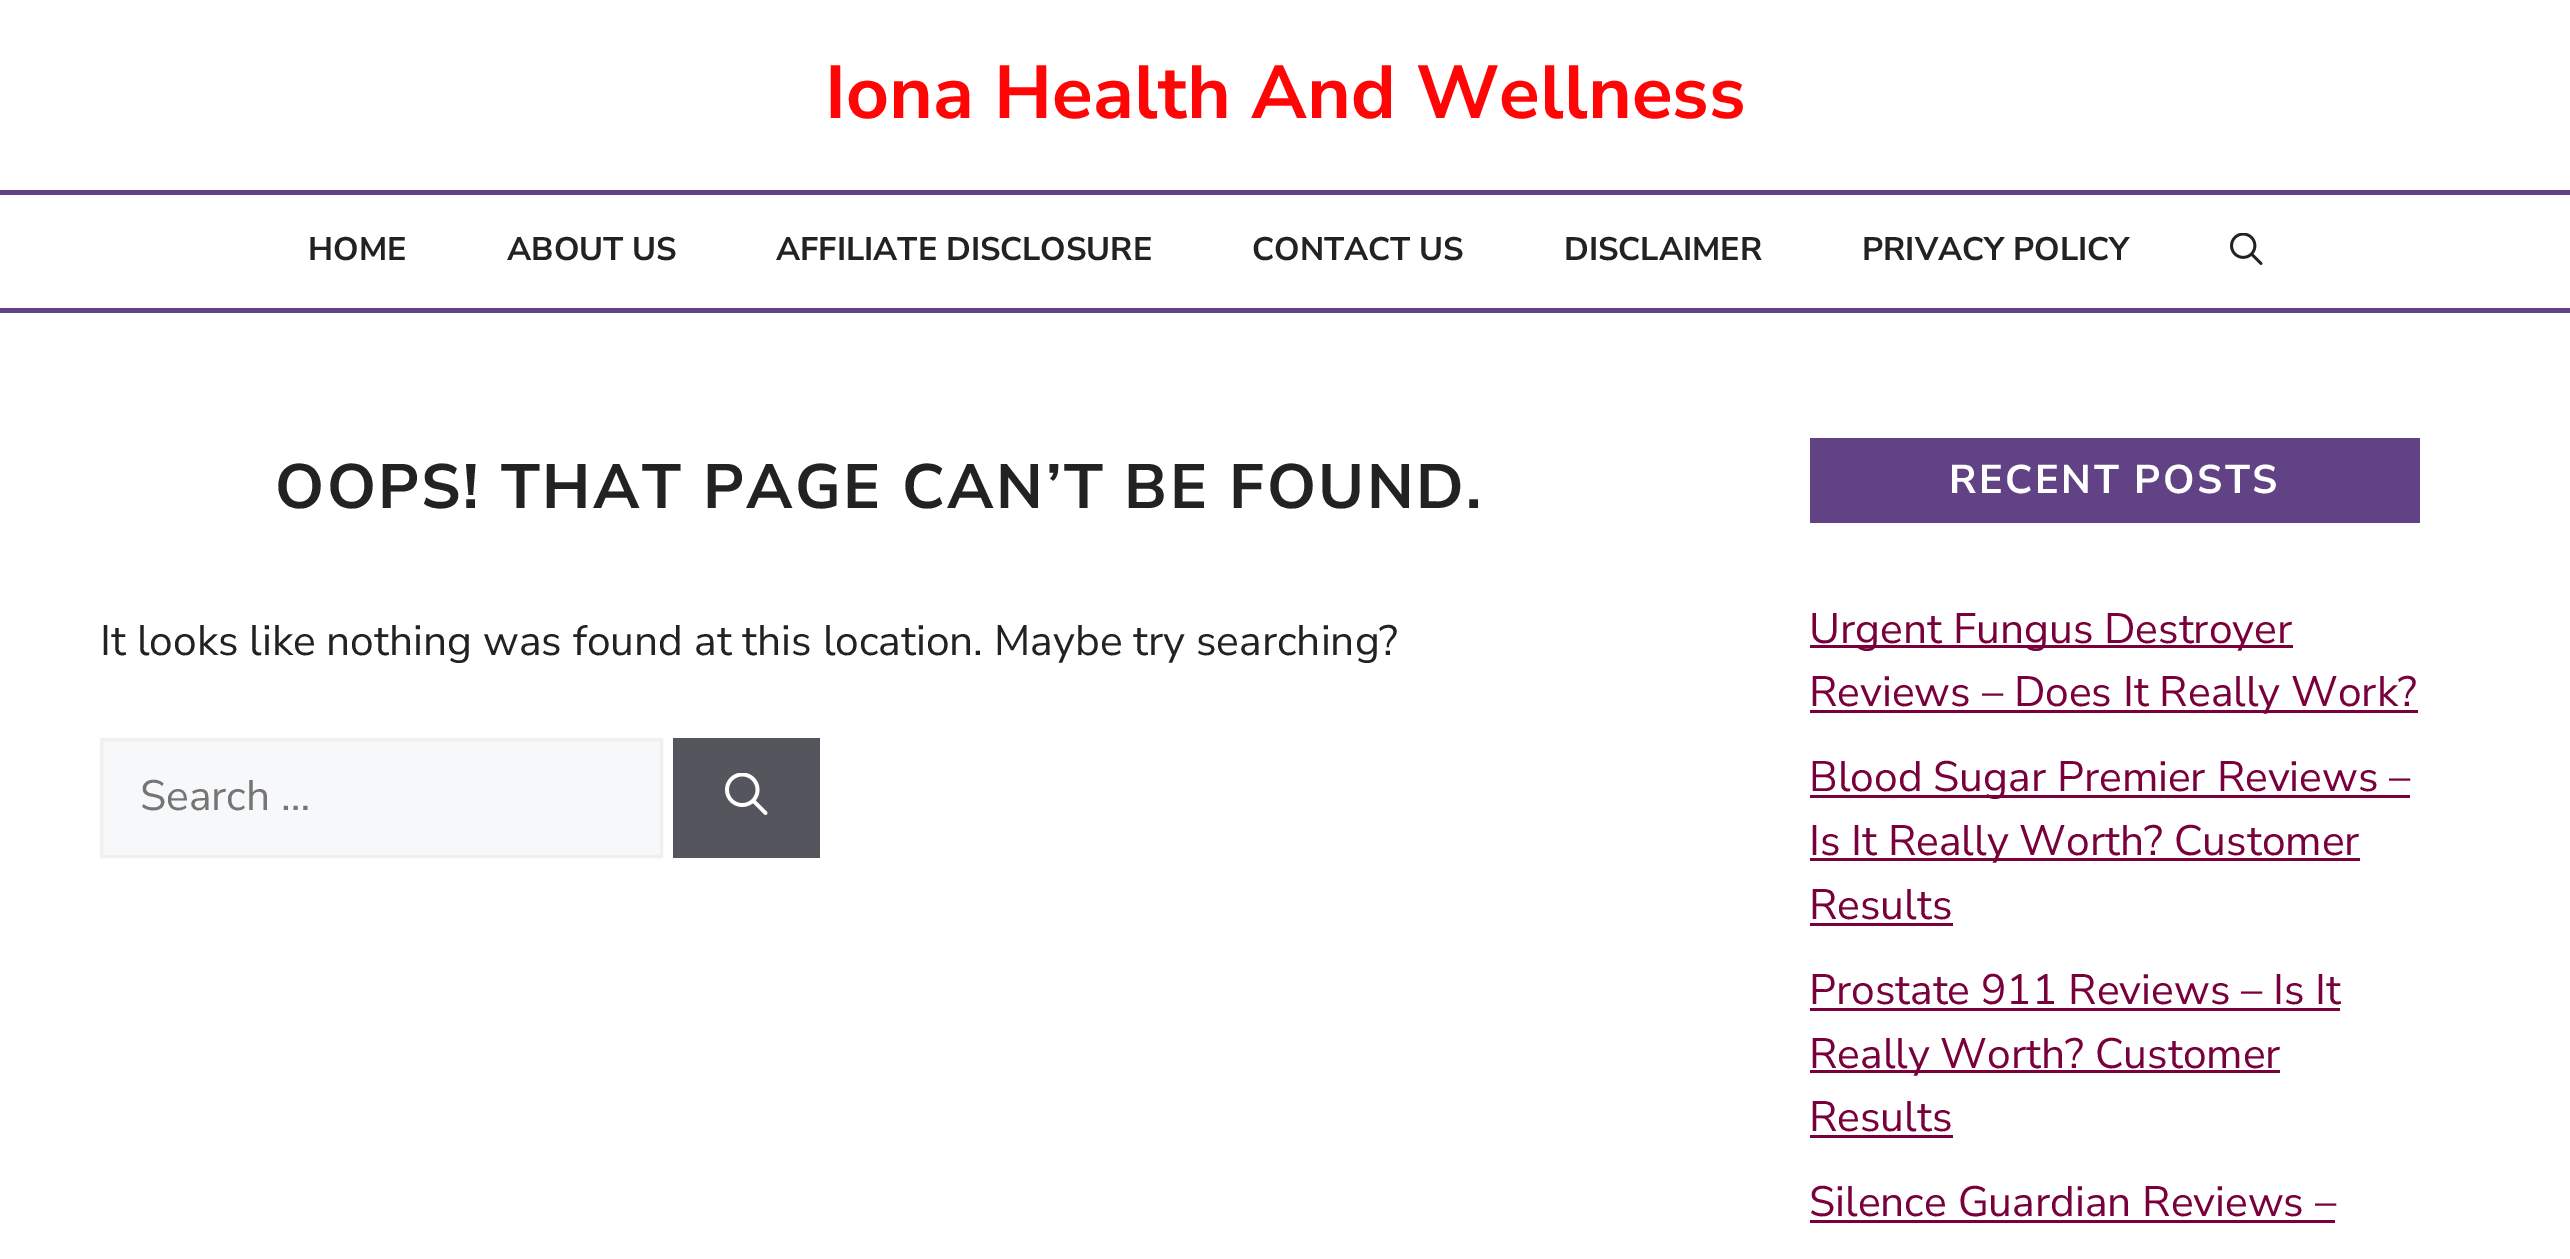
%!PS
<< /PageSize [2570 1259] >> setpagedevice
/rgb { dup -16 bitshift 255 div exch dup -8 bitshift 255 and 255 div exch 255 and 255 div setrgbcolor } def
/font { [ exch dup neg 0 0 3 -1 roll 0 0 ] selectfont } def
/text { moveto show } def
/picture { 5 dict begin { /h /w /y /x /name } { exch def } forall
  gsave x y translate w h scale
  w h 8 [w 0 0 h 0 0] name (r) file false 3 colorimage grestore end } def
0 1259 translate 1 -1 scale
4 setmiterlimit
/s1 { /NunitoSans-Bold 75 font 16#FF0505 rgb } def
/s2 { /NunitoSans-Bold 32.5 font 16#222222 rgb } def
/s3 { /NunitoSans-Regular 42.5 font 16#222222 rgb } def
/s4 { /NunitoSans-Regular 42.5 font 16#757575 rgb } def
/s5 { /NunitoSans-Regular 42.5 font 16#7A003C rgb } def
16#FFFFFF rgb
0 0 2570 1259 rectfill
s1
(Iona Health And Wellness) 825 118 text
16#614385 rgb
0 190 2570 5 rectfill
0 308 2570 5 rectfill
s2
(HOME) 308 260 text
(ABOUT US) 507 260 text
(AFFILIATE DISCLOSURE) 776 260 text
(CONTACT US) 1252 260 text
(DISCLAIMER) 1564 260 text
(PRIVACY POLICY) 1862 260 text
(pic1.raw) 2230 233 33 32 picture
/NunitoSans-Bold 62.5 font
275 508 moveto 2.5 0 (OOPS! THAT PAGE CAN’T BE FOUND.) ashow
s3
(It looks like nothing was found at this location. Maybe try searching?) 100 655 text
16#F7F8F9 rgb
101.5 739.5 moveto 661.5 739.5 lineto 661.5 856.5 lineto 101.5 856.5 lineto closepath gsave fill grestore
16#F0F0F0 rgb
3 setlinewidth
stroke
s4
(Search …) 140 810 text
16#55555E rgb
673 738 147 120 rectfill
(pic2.raw) 725 773 43 42 picture
16#614385 rgb
1810 438 610 85 rectfill
/NunitoSans-Bold 40 font
16#FFFFFF rgb
1949 493 moveto 2.5 0 (RECENT POSTS) ashow
16#7A003C rgb
1810 645 483 3 rectfill
s5
(Urgent Fungus Destroyer) 1809 643 text
1810 710 608 3 rectfill
(Reviews – Does It Really Work?) 1809 706 text
1810 795 600 3 rectfill
(Blood Sugar Premier Reviews –) 1809 791 text
1810 858 550 3 rectfill
(Is It Really Worth? Customer) 1809 855 text
(Results) 1809 919 text
1810 923 143 3 rectfill
(Prostate 911 Reviews – Is It) 1809 1004 text
1810 1008 530 3 rectfill
1810 1070 470 3 rectfill
(Really Worth? Customer) 1809 1068 text
(Results) 1809 1131 text
1810 1135 143 3 rectfill
(Silence Guardian Reviews –) 1809 1216 text
1810 1220 525 3 rectfill
showpage
